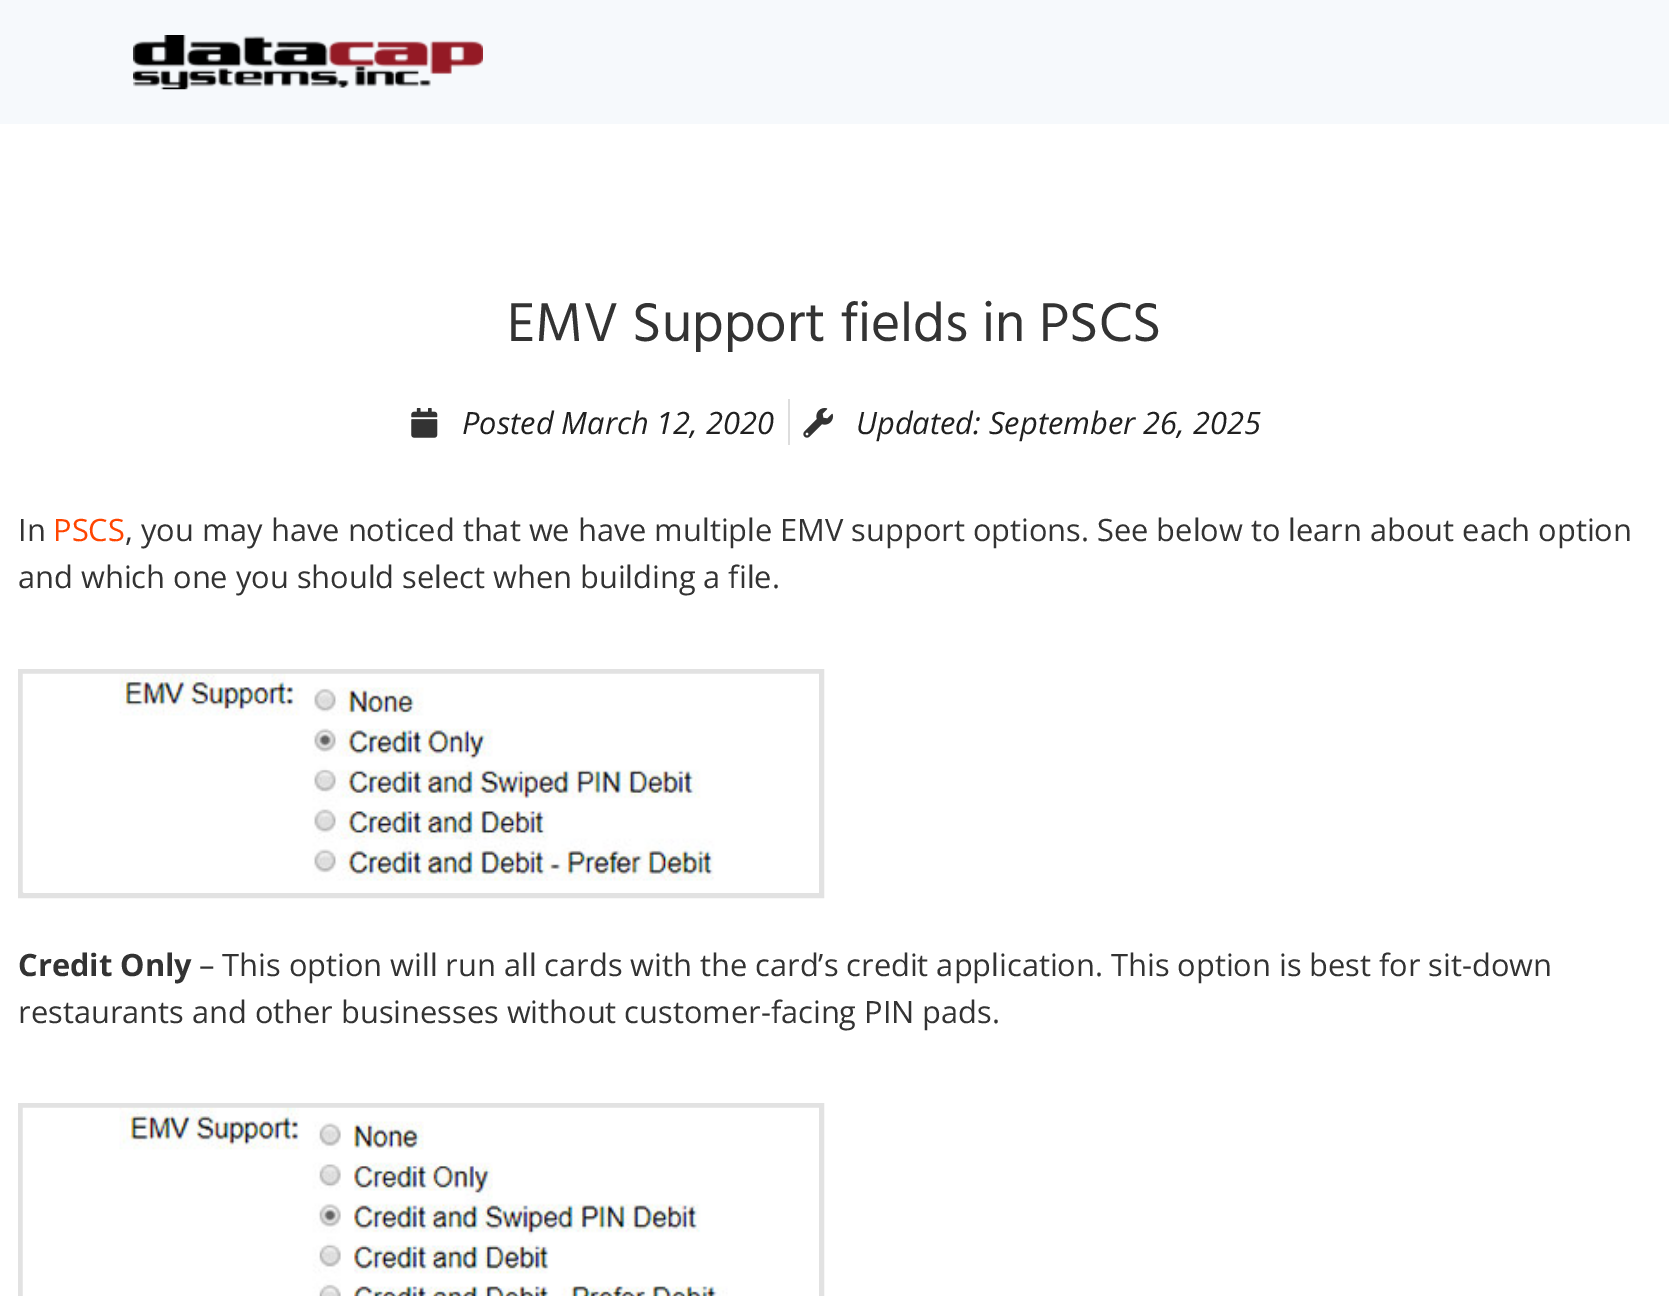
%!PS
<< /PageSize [1669 1296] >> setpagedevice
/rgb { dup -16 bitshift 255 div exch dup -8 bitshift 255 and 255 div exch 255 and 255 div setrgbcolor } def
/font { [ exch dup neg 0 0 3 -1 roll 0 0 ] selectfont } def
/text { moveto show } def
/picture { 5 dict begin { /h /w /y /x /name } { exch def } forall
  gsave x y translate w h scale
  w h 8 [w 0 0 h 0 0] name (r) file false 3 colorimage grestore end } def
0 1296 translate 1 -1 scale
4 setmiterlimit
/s1 { /Hind-Regular 56 font 16#333333 rgb } def
/s2 { /OpenSans-Italic 30.8 font 16#202020 rgb } def
/s3 { /OpenSans-Regular 30.8 font 16#333333 rgb } def
/s4 { /OpenSans-Regular 30.8 font 16#FF4500 rgb } def
/s5 { /OpenSans-Bold 30.8 font 16#333333 rgb } def
16#FFFFFF rgb
0 0 1669 1296 rectfill
16#F6F9FC rgb
0 0 1669 124 rectfill
(pic1.raw) 133 35 350 55 picture
s1
(EMV Support fields in PSCS) 507 341 text
(pic2.raw) 411 408 27 30 picture
s2
(Posted March 12, 2020) 462 434 text
16#DDDDDD rgb
788 399 2 46 rectfill
(pic3.raw) 803 408 31 30 picture
s2
(Updated: September 26, 2025) 856 434 text
s3
(In) 18 541 text
s4
(PSCS) 53 541 text
s3
(, you may have noticed that we have multiple EMV support options. See below to learn about each option) 125 541 text
(and which one you should select when building a file.) 18 588 text
16#E2E2E2 rgb
5 setlinewidth
20.5 671.5 801 224 rectstroke
(pic4.raw) 22 673 797 219 picture
s5
(Credit Only) 18 976 text
s3
(– This option will run all cards with the card’s credit application. This option is best for sit-down) 199 976 text
(restaurants and other businesses without customer-facing PIN pads.) 18 1023 text
16#E2E2E2 rgb
20.5 1105.5 801 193 rectstroke
(pic5.raw) 22 1107 797 189 picture
showpage
